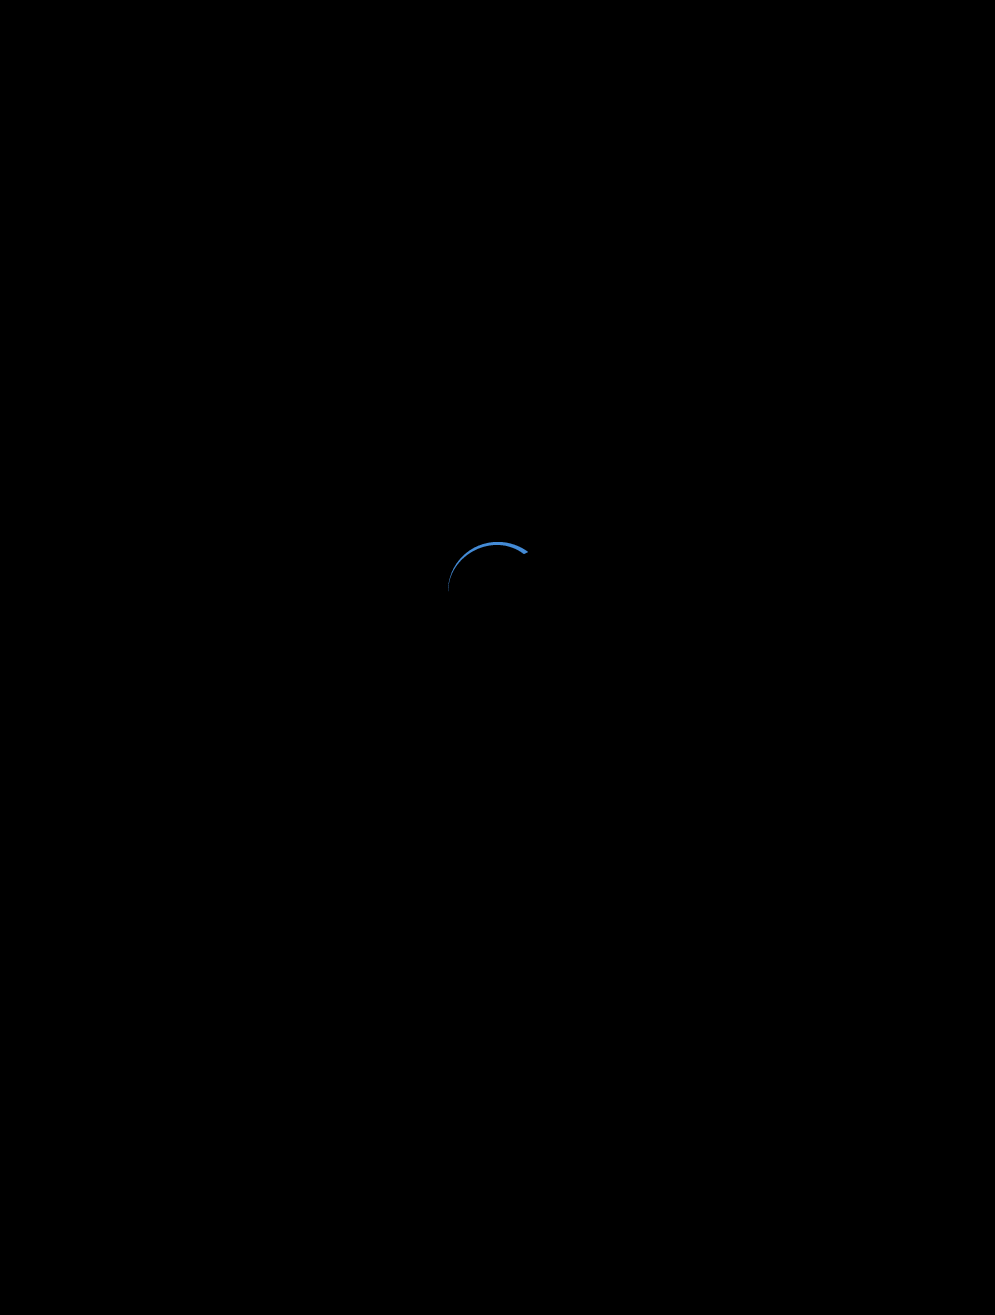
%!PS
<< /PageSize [995 1315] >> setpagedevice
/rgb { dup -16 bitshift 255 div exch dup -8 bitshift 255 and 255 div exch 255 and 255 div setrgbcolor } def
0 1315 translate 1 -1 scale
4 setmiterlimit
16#000000 rgb
0 0 995 1315 rectfill
16#448BD6 rgb
498 542 moveto 470 542 448 564 448 592 curveto 448 554 494 531 524 554 curveto 528 552 lineto 520 546 509 542 498 542 curveto closepath fill
showpage
